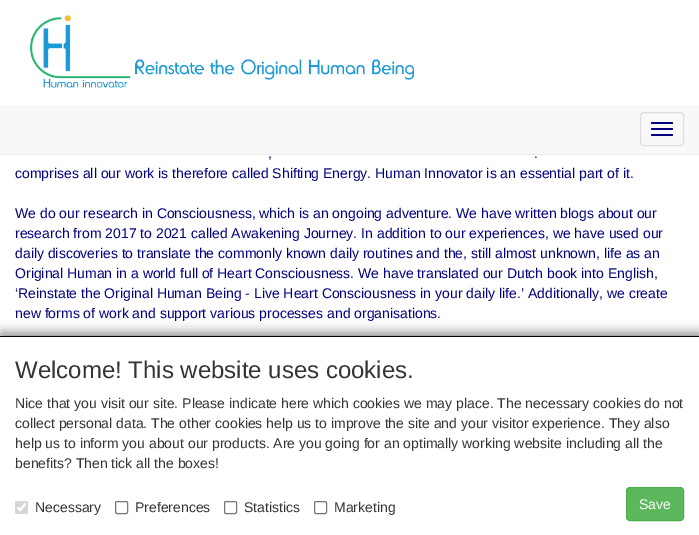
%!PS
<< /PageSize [699 535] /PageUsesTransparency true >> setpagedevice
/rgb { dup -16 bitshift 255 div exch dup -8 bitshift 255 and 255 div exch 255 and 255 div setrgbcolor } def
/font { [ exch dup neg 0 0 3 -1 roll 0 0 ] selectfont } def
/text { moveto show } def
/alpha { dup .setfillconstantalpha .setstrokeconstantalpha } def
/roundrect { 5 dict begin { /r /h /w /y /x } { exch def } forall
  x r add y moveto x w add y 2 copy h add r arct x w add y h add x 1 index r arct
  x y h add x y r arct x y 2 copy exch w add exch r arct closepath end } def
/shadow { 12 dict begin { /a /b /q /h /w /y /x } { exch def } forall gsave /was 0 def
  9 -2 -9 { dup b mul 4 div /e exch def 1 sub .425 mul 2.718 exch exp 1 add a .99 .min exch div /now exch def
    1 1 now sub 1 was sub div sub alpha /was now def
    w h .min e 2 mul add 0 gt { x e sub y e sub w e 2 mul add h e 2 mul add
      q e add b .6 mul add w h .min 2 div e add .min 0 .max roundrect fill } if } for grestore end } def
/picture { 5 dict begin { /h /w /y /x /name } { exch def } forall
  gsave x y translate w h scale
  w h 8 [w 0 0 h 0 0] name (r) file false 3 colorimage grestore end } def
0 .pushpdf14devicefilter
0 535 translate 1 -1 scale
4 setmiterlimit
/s1 { /LiberationSans-Regular 14 font 16#000080 rgb } def
/s2 { /LiberationSans-Regular 24 font 16#343434 rgb } def
/s3 { /LiberationSans-Regular 14 font 16#343434 rgb } def
/s4 { /LiberationSans-Regular 14 font 16#FEFEFE rgb } def
16#FFFFFF rgb
0 0 699 535 rectfill
(pic1.raw) 30 15 384 73 picture
16#F8F8F8 rgb
0 105 699 49 rectfill
16#EBEBEB rgb
0 154 699 1 rectfill
16#DDDDDD rgb
640.5 112.5 43 33 3.5 roundrect stroke
16#000080 rgb
651 122 22 2 1 roundrect fill
651 128 22 2 1 roundrect fill
651 134 22 2 1 roundrect fill
s1
(,) 268 158 text
(.) 534 158 text
(comprises all our work is therefore called Shifting Energy. Human Innovator is an essential part of it.) 15 178 text
(We do our research in Consciousness, which is an ongoing adventure. We have written blogs about our) 15 218 text
(research from 2017 to 2021 called Awakening Journey. In addition to our experiences, we have used our) 15 238 text
(daily discoveries to translate the commonly known daily routines and the, still almost unknown, life as an) 15 258 text
(Original Human in a world full of Heart Consciousness. We have translated our Dutch book into English,) 15 278 text
(‘Reinstate the Original Human Being - Live Heart Consciousness in your daily life.’ Additionally, we create) 15 298 text
(new forms of work and support various processes and organisations.) 15 318 text
16#808080 rgb
1 333 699 199 0 6 1 shadow
16#FFFFFF rgb
0 337 699 198 rectfill
16#000000 rgb
0 336 699 1 rectfill
s2
(Welcome! This website uses cookies.) 15 378 text
s3
(Nice that you visit our site. Please indicate here which cookies we may place. The necessary cookies do not) 15 408 text
(collect personal data. The other cookies help us to improve the site and your visitor experience. They also) 15 428 text
(help us to inform you about our products. Are you going for an optimally working website including all the) 15 448 text
(benefits? Then tick all the boxes!) 15 468 text
16#D6D6D6 rgb
15 501 13 13 2 roundrect fill
16#FFFFFF rgb
2.1 setlinewidth
17.5 507.5 moveto 20 510 lineto 25.5 503.5 lineto stroke
s3
(Necessary) 35 512 text
16#767676 rgb
1 setlinewidth
115.5 501.5 12 12 1.5 roundrect stroke
s3
(Preferences) 135 512 text
16#767676 rgb
224.5 501.5 12 12 1.5 roundrect stroke
s3
(Statistics) 244 512 text
16#767676 rgb
314.5 501.5 12 12 1.5 roundrect stroke
s3
(Marketing) 334 512 text
16#5CB85C rgb
626.5 487.5 57 33 3.5 roundrect gsave fill grestore
16#4CAE4C rgb
stroke
s4
(Save) 639 509 text
.poppdf14devicefilter showpage
